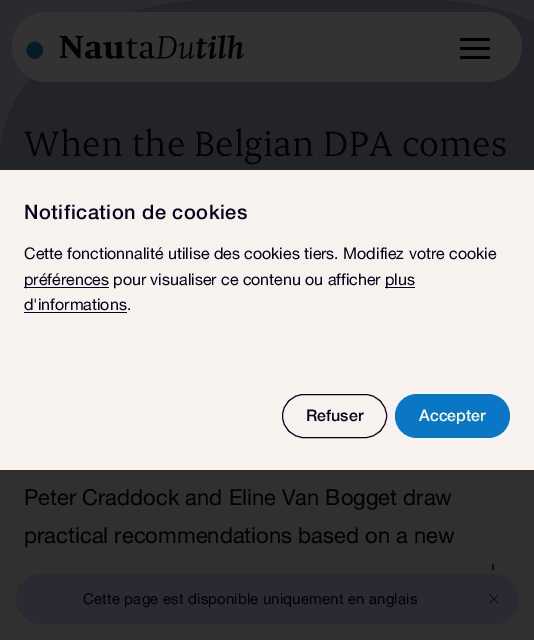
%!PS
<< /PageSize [534 640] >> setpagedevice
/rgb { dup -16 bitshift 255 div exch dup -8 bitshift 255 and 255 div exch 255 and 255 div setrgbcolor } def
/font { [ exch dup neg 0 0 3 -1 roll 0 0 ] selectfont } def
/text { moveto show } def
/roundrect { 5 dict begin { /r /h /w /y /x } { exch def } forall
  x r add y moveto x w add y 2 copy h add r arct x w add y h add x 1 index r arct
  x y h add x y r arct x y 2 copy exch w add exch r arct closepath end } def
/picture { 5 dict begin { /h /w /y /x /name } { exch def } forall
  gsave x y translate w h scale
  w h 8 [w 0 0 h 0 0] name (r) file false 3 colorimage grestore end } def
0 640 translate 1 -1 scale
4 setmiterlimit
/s1 { /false-Regular 40 font 16#010106 rgb } def
/s2 { /HelveticaNeue-Regular 16 font 16#06031D rgb } def
/s3 { /HelveticaNeue-Medium 16 font 16#06031D rgb } def
/s4 { /HelveticaNeue-Medium 16 font 16#FFFFFF rgb } def
/s5 { /HelveticaNeue-Regular 22 font 16#010106 rgb } def
16#313030 rgb
0 0 534 640 rectfill
16#292B31 rgb
0 0 534 170 rectfill
16#23242A rgb
213 0 moveto 427 0 lineto 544 0 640 72 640 160 curveto 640 248 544 320 427 320 curveto 213 320 lineto 96 320 0 248 0 160 curveto 0 72 96 0 213 0 curveto closepath fill
16#333333 rgb
12 12 510 70 35 roundrect fill
(pic1.raw) 26 35 218 24 picture
16#000000 rgb
460 47 30 3 rectfill
460 38 30 3 rectfill
460 56 30 3 rectfill
s1
(When the Belgian DPA comes) 24 156 text
16#F7F2EE rgb
0 170 534 300 rectfill
/HelveticaNeue-Medium 20 font
16#06031D rgb
24 219 moveto 0.5 0 (Notification de cookies) ashow
s2
(Cette fonctionnalité utilise des cookies tiers. Modifiez votre cookie) 24 259 text
24 287 85 1 rectfill
(préférences pour visualiser ce contenu ou afficher) 24 285 text
385 287 30 1 rectfill
(plus) 385 285 text
(d'informations.) 24 310 text
24 312 103 1 rectfill
282.5 394.5 104 43 21.5 roundrect stroke
s3
(Refuser) 306 421 text
16#0976C6 rgb
395 394 115 44 22 roundrect fill
s4
(Accepter) 419 421 text
s5
(Peter Craddock and Eline Van Bogget draw) 24 505 text
(practical recommendations based on a new) 24 543 text
(') 490 580 text
16#2B2931 rgb
16 574 502 50 25 roundrect fill
/HelveticaNeue-Regular 15 font
16#010106 rgb
83 604 moveto 0.15 0 (Cette page est disponible uniquement en anglais) ashow
(pic2.raw) 489 594 10 10 picture
showpage
